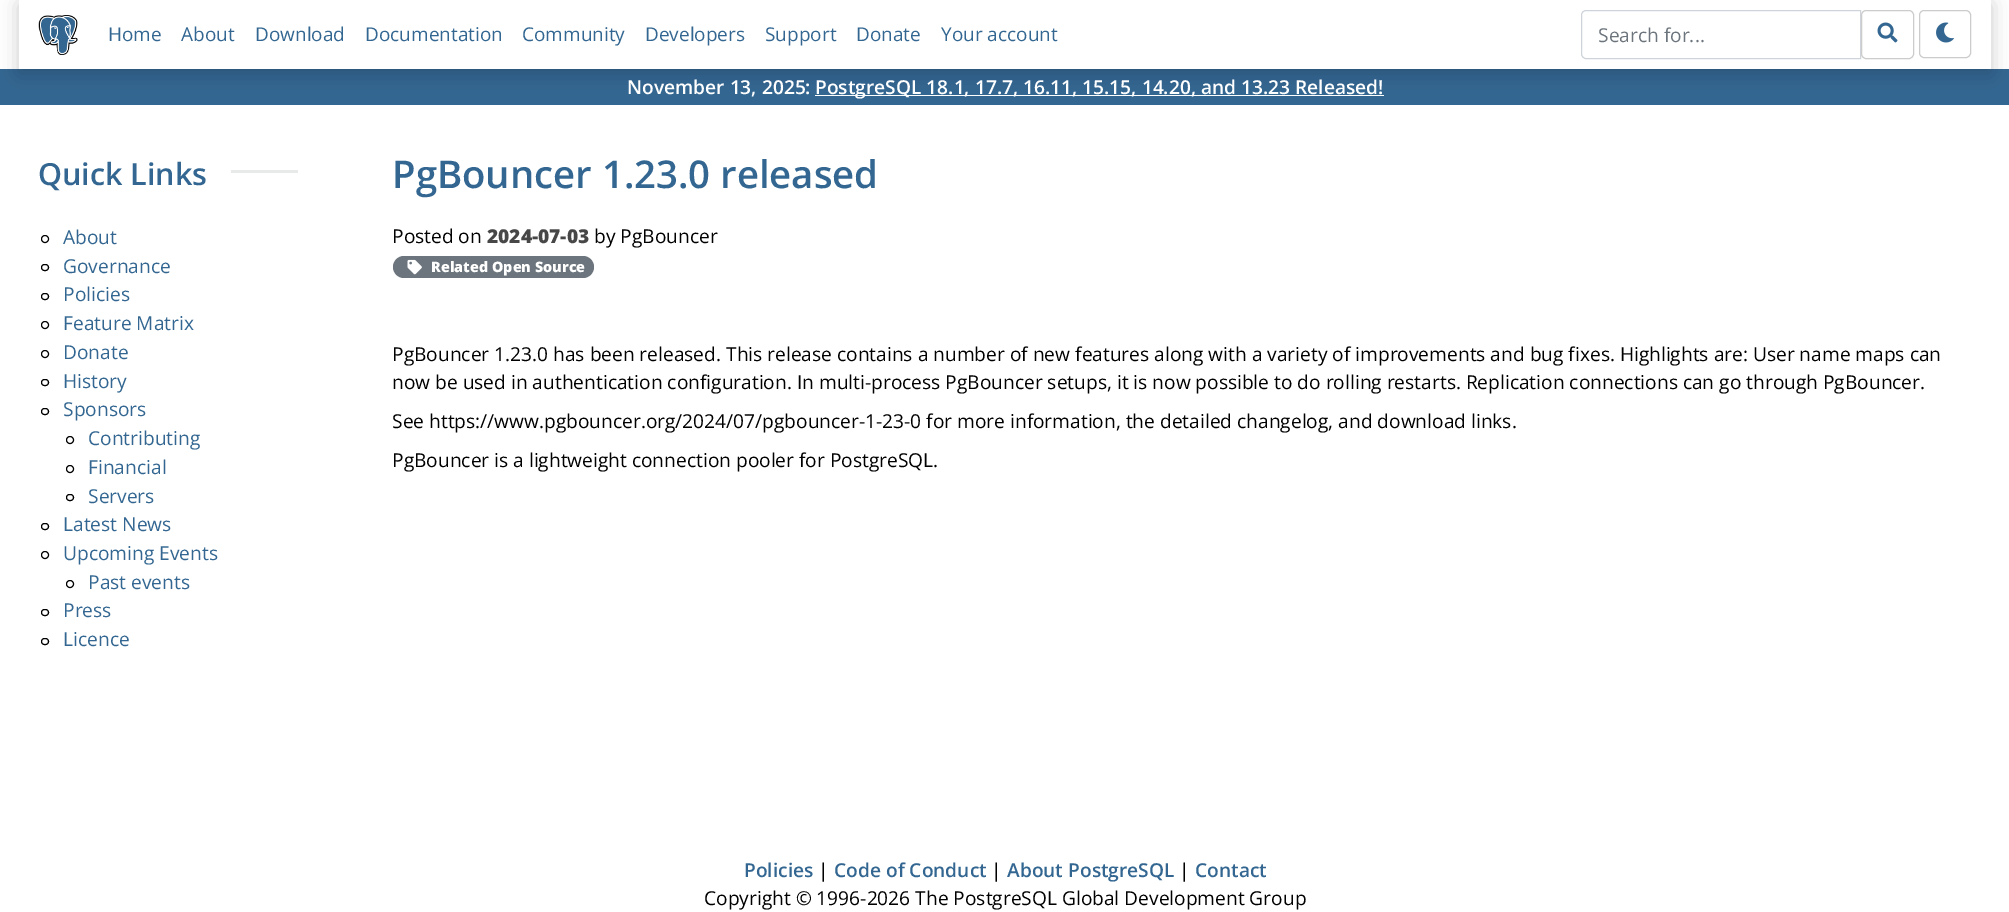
%!PS
<< /PageSize [2009 912] /PageUsesTransparency true >> setpagedevice
/rgb { dup -16 bitshift 255 div exch dup -8 bitshift 255 and 255 div exch 255 and 255 div setrgbcolor } def
/font { [ exch dup neg 0 0 3 -1 roll 0 0 ] selectfont } def
/text { moveto show } def
/alpha { dup .setfillconstantalpha .setstrokeconstantalpha } def
/circle { newpath 0 360 arc closepath } def
/roundrect { 5 dict begin { /r /h /w /y /x } { exch def } forall
  x r add y moveto x w add y 2 copy h add r arct x w add y h add x 1 index r arct
  x y h add x y r arct x y 2 copy exch w add exch r arct closepath end } def
/shadow { 12 dict begin { /a /b /q /h /w /y /x } { exch def } forall gsave /was 0 def
  9 -2 -9 { dup b mul 4 div /e exch def 1 sub .425 mul 2.718 exch exp 1 add a .99 .min exch div /now exch def
    1 1 now sub 1 was sub div sub alpha /was now def
    w h .min e 2 mul add 0 gt { x e sub y e sub w e 2 mul add h e 2 mul add
      q e add b .6 mul add w h .min 2 div e add .min 0 .max roundrect fill } if } for grestore end } def
/picture { 5 dict begin { /h /w /y /x /name } { exch def } forall
  gsave x y translate w h scale
  w h 8 [w 0 0 h 0 0] name (r) file false 3 colorimage grestore end } def
0 .pushpdf14devicefilter
0 912 translate 1 -1 scale
4 setmiterlimit
/s1 { /OpenSans-Regular 19 font 16#336791 rgb } def
/s2 { /OpenSans-Regular 19.17 font 16#6C757D rgb } def
/s3 { /OpenSans-SemiBold 19.17 font 16#FFFFFF rgb } def
/s4 { /OpenSans-SemiBold 30.5 font 16#336791 rgb } def
/s5 { /OpenSans-Regular 19.17 font 16#336791 rgb } def
/s6 { /OpenSans-SemiBold 38.3 font 16#336791 rgb } def
/s7 { /OpenSans-Regular 19.17 font 16#000000 rgb } def
/s8 { /OpenSans-ExtraBold 19.17 font 16#474747 rgb } def
/s9 { /OpenSans-ExtraBold 14.4 font 16#FFFFFF rgb } def
/s10 { /OpenSans-SemiBold 19.17 font 16#336791 rgb } def
16#FFFFFF rgb
0 0 2009 912 rectfill
16#336791 rgb
0 69 2009 36 rectfill
gsave
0 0 moveto 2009 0 lineto 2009 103 lineto 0 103 lineto closepath 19 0 moveto 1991 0 lineto 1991 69 lineto 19 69 lineto closepath eoclip newpath
16#000000 rgb
19 4 1972 69 0 9.5 0.2 shadow
grestore
(pic1.raw) 38 15 40 40 picture
s1
(Home) 108 41 text
(About) 181 41 text
(Download) 255 41 text
(Documentation) 365 41 text
(Community) 522 41 text
(Developers) 645 41 text
(Support) 765 41 text
(Donate) 856 41 text
(Your account) 941 41 text
16#CED4DA rgb
1586 10.5 moveto 1860.5 10.5 lineto 1860.5 58.5 lineto 1586 58.5 lineto 1583.5 58.5 1581.5 56.5 1581.5 54 curveto 1581.5 15 lineto 1581.5 12.5 1583.5 10.5 1586 10.5 curveto closepath stroke
s2
(Search for...) 1598 42 text
16#CCCCCC rgb
1861.5 10.5 52 48 4.5 roundrect stroke
(pic2.raw) 1877 22 21 21 picture
1919.5 10.5 51 47 4.5 roundrect stroke
(pic3.raw) 1936 22 18 21 picture
s3
(November 13, 2025:) 627 94 text
815 95 569 1 rectfill
(PostgreSQL 18.1, 17.7, 16.11, 15.15, 14.20, and 13.23 Released!) 815 94 text
s4
(Quick Links) 38 185 text
16#E7EAE8 rgb
231 170 67 3 rectfill
16#000000 rgb
45 239 3.5 circle stroke
s5
(About) 63 244 text
16#000000 rgb
41.5 264.5 7 6 3 roundrect stroke
s5
(Governance) 63 273 text
16#000000 rgb
41.5 293.5 7 6 3 roundrect stroke
s5
(Policies) 63 301 text
16#000000 rgb
45 325 3.5 circle stroke
s5
(Feature Matrix) 63 330 text
16#000000 rgb
45 354 3.5 circle stroke
s5
(Donate) 63 359 text
16#000000 rgb
41.5 379.5 7 6 3 roundrect stroke
s5
(History) 63 388 text
16#000000 rgb
41.5 408.5 7 6 3 roundrect stroke
s5
(Sponsors) 63 416 text
16#000000 rgb
70 440 3.5 circle stroke
s5
(Contributing) 88 445 text
16#000000 rgb
70 469 3.5 circle stroke
s5
(Financial) 88 474 text
16#000000 rgb
66.5 494.5 7 6 3 roundrect stroke
s5
(Servers) 88 503 text
16#000000 rgb
41.5 523.5 7 6 3 roundrect stroke
s5
(Latest News) 63 531 text
16#000000 rgb
45 555 3.5 circle stroke
s5
(Upcoming Events) 63 560 text
16#000000 rgb
70 584 3.5 circle stroke
s5
(Past events) 88 589 text
16#000000 rgb
41.5 609.5 7 6 3 roundrect stroke
s5
(Press) 63 617 text
16#000000 rgb
41.5 638.5 7 6 3 roundrect stroke
s5
(Licence) 63 646 text
s6
(PgBouncer 1.23.0 released) 392 188 text
s7
(Posted on) 392 243 text
s8
(2024-07-03) 487 243 text
s7
(by PgBouncer) 594 243 text
16#6C757D rgb
393 256 201 22 11 roundrect fill
(pic4.raw) 407 259 15 16 picture
s9
(Related Open Source) 431 272 text
s7
(PgBouncer 1.23.0 has been released. This release contains a number of new features along with a variety of improvements and bug fixes. Highlights are: User name maps can) 392 361 text
(now be used in authentication configuration. In multi-process PgBouncer setups, it is now possible to do rolling restarts. Replication connections can go through PgBouncer.) 392 389 text
(See https://www.pgbouncer.org/2024/07/pgbouncer-1-23-0 for more information, the detailed changelog, and download links.) 392 428 text
(PgBouncer is a lightweight connection pooler for PostgreSQL.) 392 467 text
s10
(Policies) 744 877 text
s7
(|) 818 877 text
s10
(Code of Conduct) 834 877 text
s7
(|) 991 877 text
s10
(About PostgreSQL) 1007 877 text
s7
(|) 1179 877 text
s10
(Contact) 1195 877 text
s7
(Copyright © 1996-2026 The PostgreSQL Global Development Group) 704 905 text
.poppdf14devicefilter showpage
